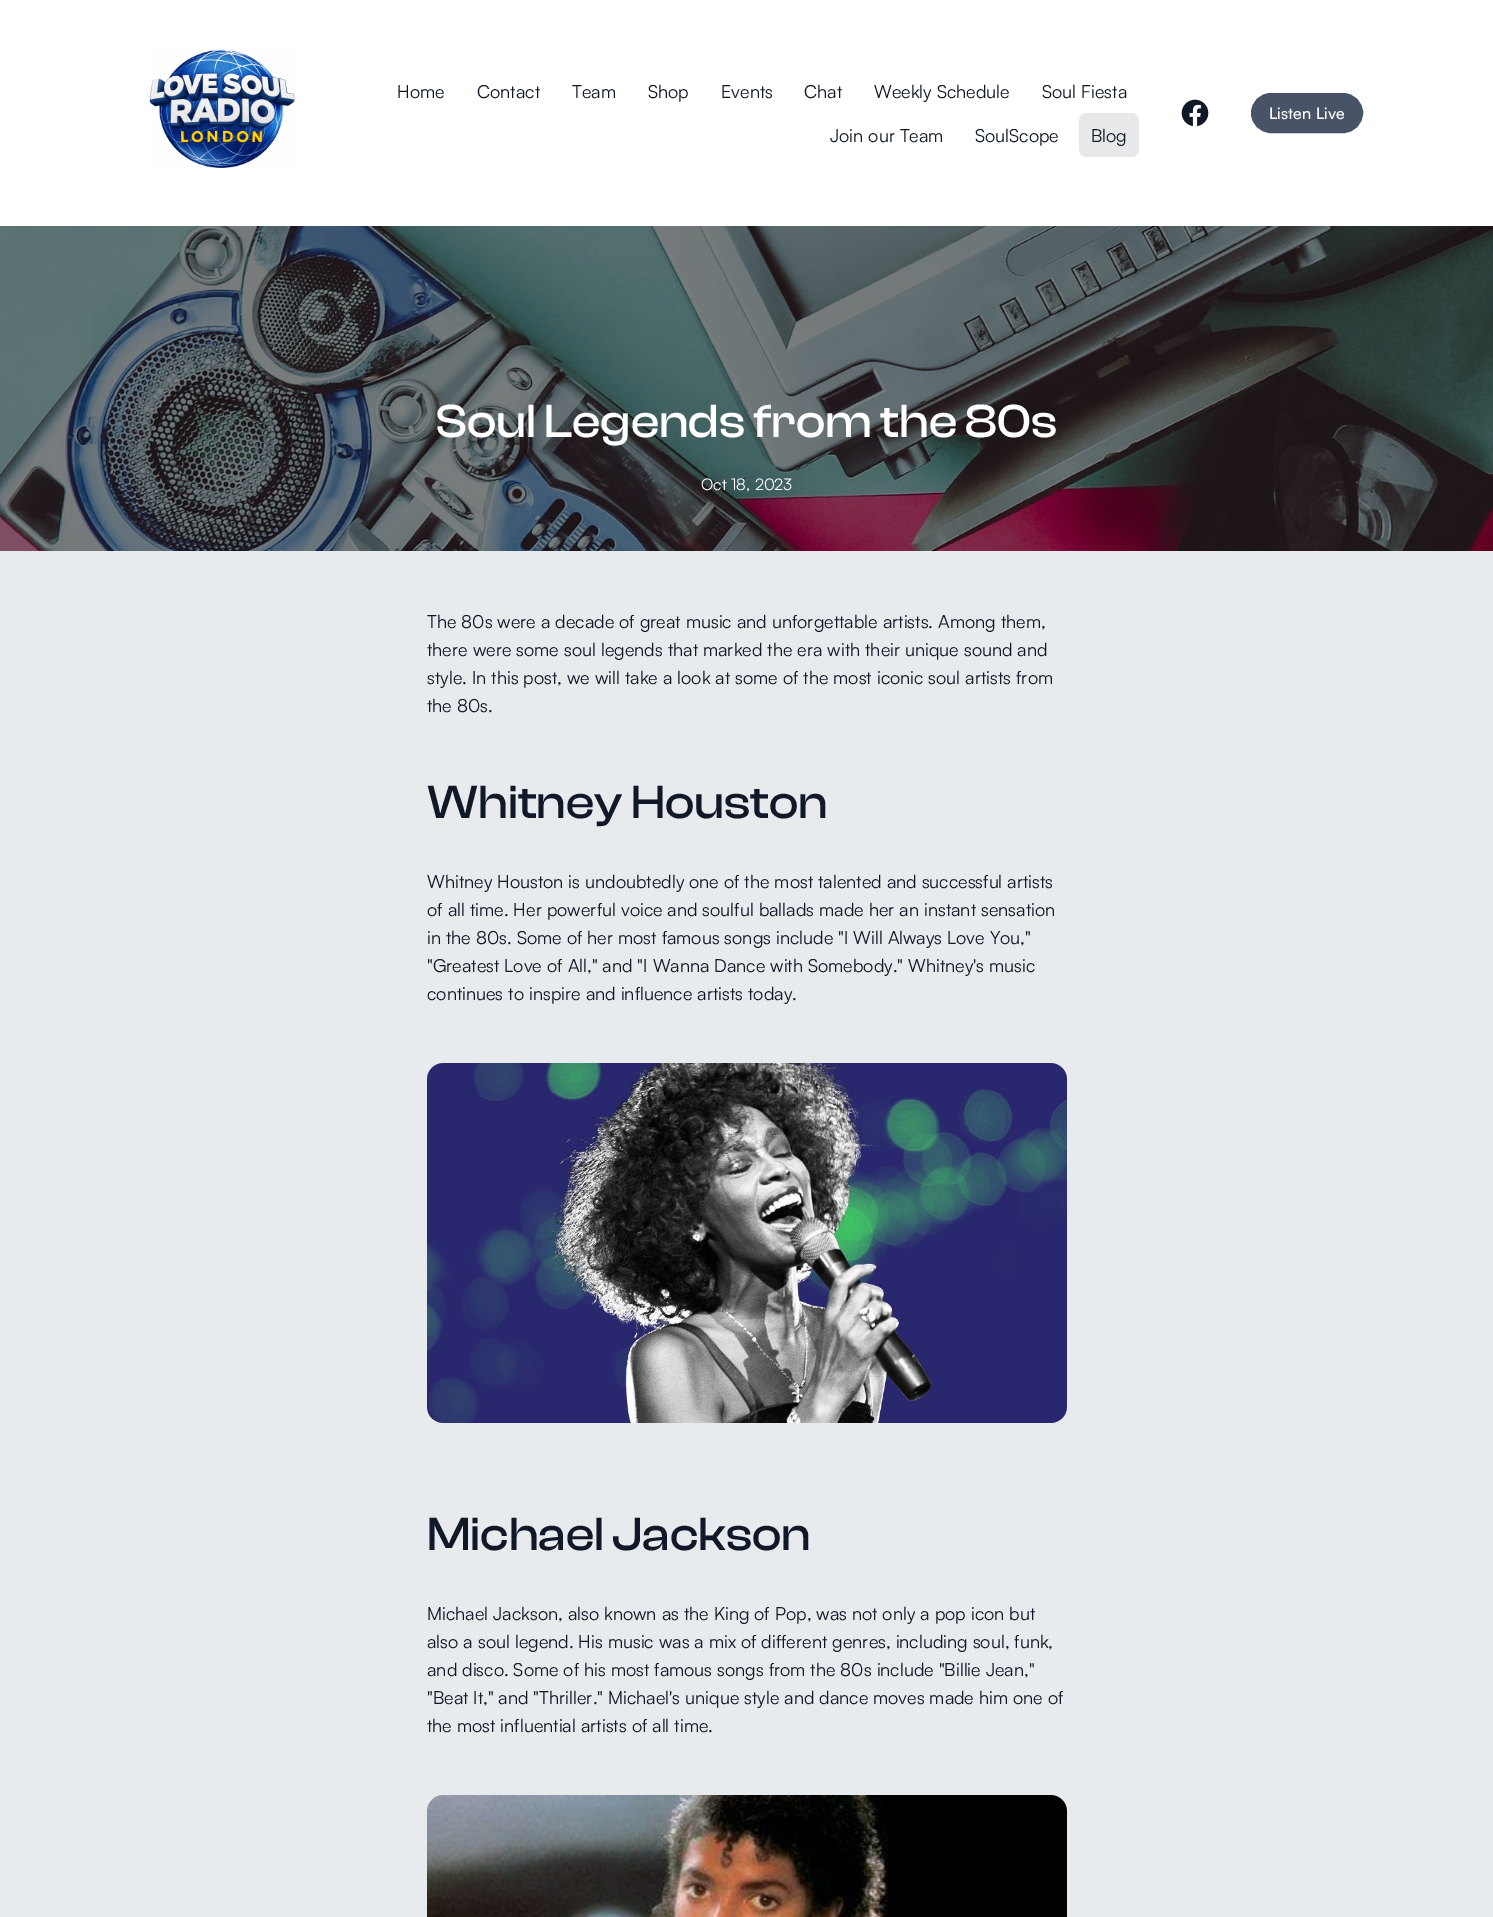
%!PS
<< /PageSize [1493 1917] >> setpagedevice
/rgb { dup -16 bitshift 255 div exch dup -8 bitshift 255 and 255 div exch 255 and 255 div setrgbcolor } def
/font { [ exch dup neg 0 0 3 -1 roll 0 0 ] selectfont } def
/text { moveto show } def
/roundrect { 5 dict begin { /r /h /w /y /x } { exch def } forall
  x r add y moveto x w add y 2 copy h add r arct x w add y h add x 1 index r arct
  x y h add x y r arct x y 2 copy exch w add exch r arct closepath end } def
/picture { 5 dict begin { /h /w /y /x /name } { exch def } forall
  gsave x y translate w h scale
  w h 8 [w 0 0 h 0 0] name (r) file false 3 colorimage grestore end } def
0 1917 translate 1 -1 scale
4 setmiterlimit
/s1 { /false-Regular 18 font 16#111827 rgb } def
/s2 { /Satoshi-Medium 16 font 16#FFFFFF rgb } def
/s3 { /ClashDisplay-Medium 48 font 16#FFFFFF rgb } def
/s4 { /false-Regular 16 font 16#FFFFFF rgb } def
/s5 { /ClashDisplay-Medium 48 font 16#111827 rgb } def
16#FFFFFF rgb
0 0 1493 1917 rectfill
(pic1.raw) 149 49 146 119 picture
s1
(Home) 397 98 text
(Contact) 477 98 text
(Team) 572 98 text
(Shop) 648 98 text
(Events) 721 98 text
(Chat) 804 98 text
(Weekly Schedule) 874 98 text
(Soul Fiesta) 1042 98 text
(Join our Team) 830 142 text
(SoulScope) 975 142 text
16#E7E8E9 rgb
1079 113 60 44 8 roundrect fill
s1
(Blog) 1091 142 text
(pic2.raw) 1181 99 28 28 picture
16#495367 rgb
1252 94 110 38 19 roundrect gsave fill grestore
2 setlinewidth
stroke
s2
(Listen Live) 1269 119 text
(pic3.raw) 0 226 1493 325 picture
s3
(Soul Legends from the 80s) 436 437 text
s4
(Oct 18, 2023) 701 490 text
16#E7EBED rgb
0 551 1493 1366 rectfill
s1
(The 80s were a decade of great music and unforgettable artists. Among them,) 427 628 text
(there were some soul legends that marked the era with their unique sound and) 427 656 text
(style. In this post, we will take a look at some of the most iconic soul artists from) 427 684 text
(the 80s.) 427 712 text
s5
(Whitney Houston) 427 818 text
s1
(Whitney Houston is undoubtedly one of the most talented and successful artists) 427 888 text
(of all time. Her powerful voice and soulful ballads made her an instant sensation) 427 916 text
(in the 80s. Some of her most famous songs include "I Will Always Love You,") 427 944 text
("Greatest Love of All," and "I Wanna Dance with Somebody." Whitney's music) 427 972 text
(continues to inspire and influence artists today.) 427 1000 text
16#F3F4F6 rgb
427 1063 640 360 16 roundrect fill
(pic4.raw) 427 1063 640 360 picture
s5
(Michael Jackson) 427 1550 text
s1
(Michael Jackson, also known as the King of Pop, was not only a pop icon but) 427 1620 text
(also a soul legend. His music was a mix of different genres, including soul, funk,) 427 1648 text
(and disco. Some of his most famous songs from the 80s include "Billie Jean,") 427 1676 text
("Beat It," and "Thriller." Michael's unique style and dance moves made him one of) 427 1704 text
(the most influential artists of all time.) 427 1732 text
16#F3F4F6 rgb
443 1795 moveto 1051 1795 lineto 1060 1795 1067 1802 1067 1811 curveto 1067 1917 lineto 427 1917 lineto 427 1811 lineto 427 1802 434 1795 443 1795 curveto closepath fill
(pic5.raw) 427 1795 640 122 picture
showpage
